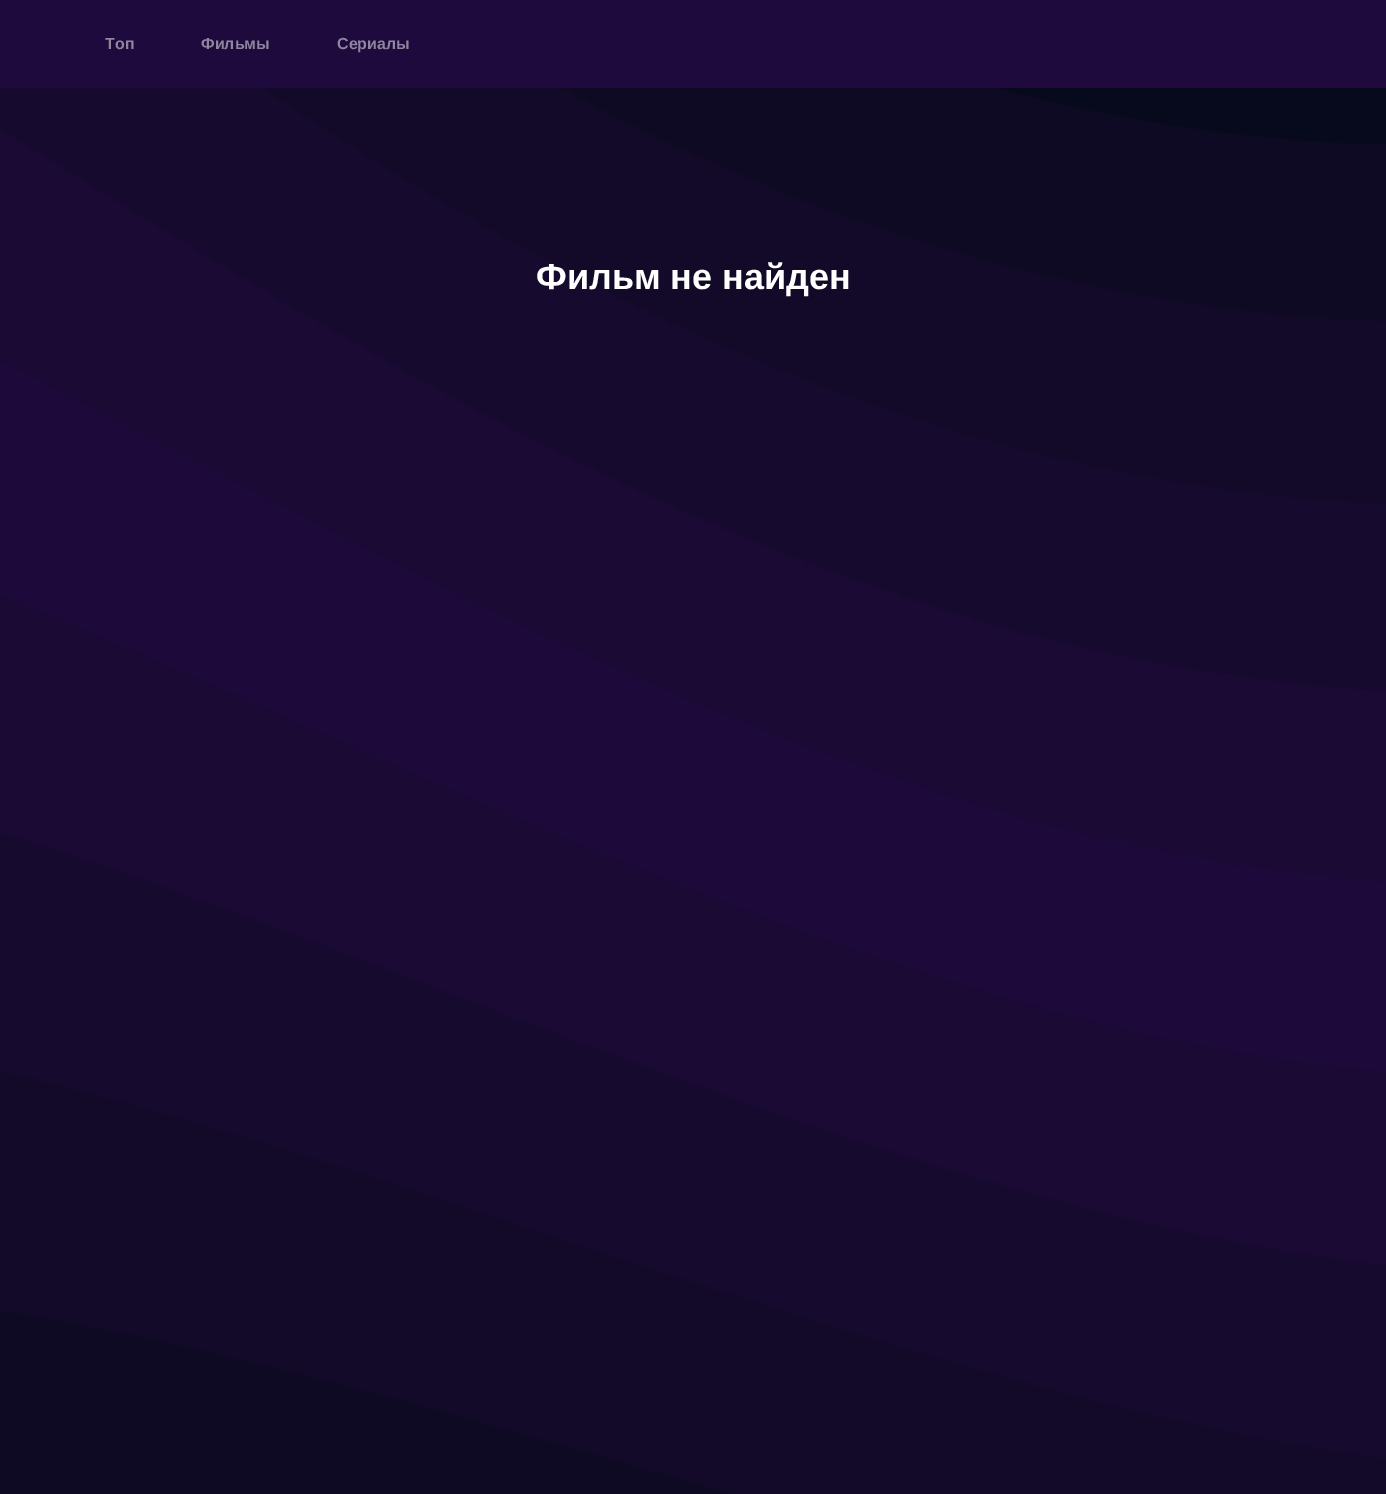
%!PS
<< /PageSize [1386 1494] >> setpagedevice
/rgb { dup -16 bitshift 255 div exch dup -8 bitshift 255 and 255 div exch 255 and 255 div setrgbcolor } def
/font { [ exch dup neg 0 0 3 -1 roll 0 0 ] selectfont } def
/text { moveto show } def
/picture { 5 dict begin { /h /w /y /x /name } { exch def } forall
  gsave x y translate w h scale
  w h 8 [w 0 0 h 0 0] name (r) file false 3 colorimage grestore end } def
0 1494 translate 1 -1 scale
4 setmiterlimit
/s1 { /LiberationSans-Bold 16 font 16#8F859E rgb } def
/s2 { /LiberationSans-Bold 36 font 16#FFFFFF rgb } def
16#FFFFFF rgb
0 0 1386 1494 rectfill
(pic1.raw) 0 88 1386 1406 picture
16#1E0A3D rgb
0 0 1386 88 rectfill
s1
(Топ) 105 49 text
(Фильмы) 201 49 text
(Сериалы) 337 49 text
s2
(Фильм не найден) 536 289 text
showpage
